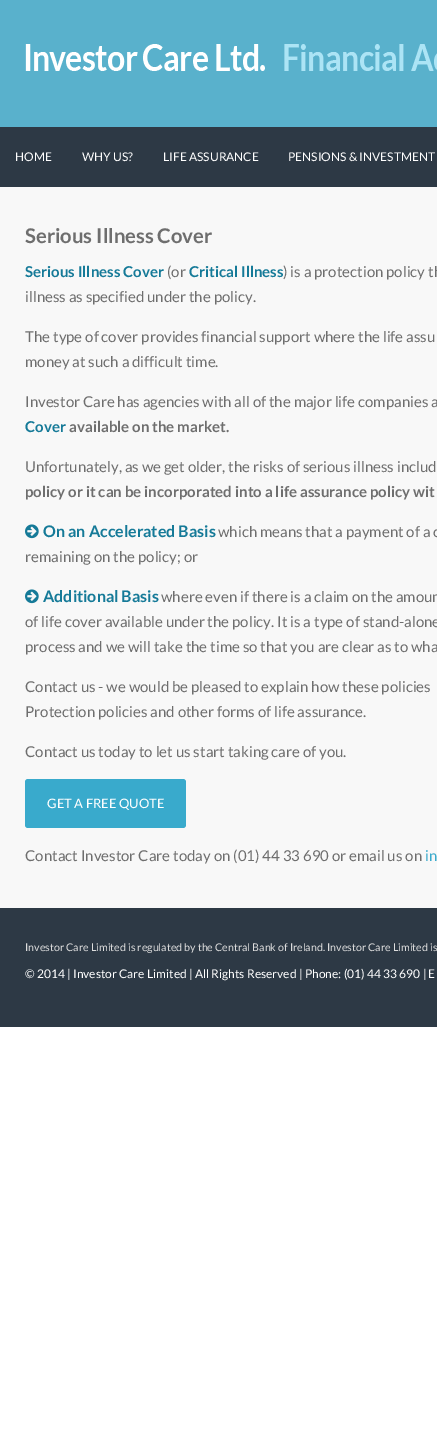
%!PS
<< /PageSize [437 1431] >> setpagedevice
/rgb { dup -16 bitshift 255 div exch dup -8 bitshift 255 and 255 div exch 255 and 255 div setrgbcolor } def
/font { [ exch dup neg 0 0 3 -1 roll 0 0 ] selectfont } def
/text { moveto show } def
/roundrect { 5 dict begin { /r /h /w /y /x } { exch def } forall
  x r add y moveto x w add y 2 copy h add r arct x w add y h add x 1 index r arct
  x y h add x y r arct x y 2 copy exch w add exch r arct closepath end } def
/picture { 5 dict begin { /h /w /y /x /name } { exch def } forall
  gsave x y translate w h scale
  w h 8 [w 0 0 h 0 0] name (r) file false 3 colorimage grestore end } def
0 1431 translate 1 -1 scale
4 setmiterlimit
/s1 { /Lato-Regular 12 font 16#FFFFFF rgb } def
/s2 { /Lato-Bold 20.25 font 16#6E6E6E rgb } def
/s3 { /Lato-Bold 15 font 16#157A98 rgb } def
/s4 { /Lato-Regular 15 font 16#6E6E6E rgb } def
/s5 { /Lato-Bold 15 font 16#6E6E6E rgb } def
/s6 { /Lato-Bold 16 font 16#157A98 rgb } def
/s7 { /Lato-Regular 13 font 16#FFFFFF rgb } def
/s8 { /Lato-Regular 15 font 16#39AACC rgb } def
/s9 { /Lato-Regular 10.65 font 16#DDDDDD rgb } def
16#FFFFFF rgb
0 0 437 1431 rectfill
16#59B1CC rgb
0 0 437 127 rectfill
(pic1.raw) 25 44 412 27 picture
16#2D3945 rgb
0 127 437 60 rectfill
s1
(HOME) 15 161 text
(WHY US?) 82 161 text
(LIFE ASSURANCE) 163 161 text
(PENSIONS & INVESTMENT) 288 161 text
16#F8F8F8 rgb
0 187 437 721 rectfill
s2
(Serious Illness Cover) 25 243 text
s3
(Serious Illness Cover) 25 277 text
s4
(\(or) 167 277 text
s3
(Critical Illness) 189 277 text
s4
(\) is a protection policy th) 283 277 text
(illness as specified under the policy.) 25 302 text
(The type of cover provides financial support where the life assu) 25 342 text
(money at such a difficult time.) 25 367 text
(Investor Care has agencies with all of the major life companies a) 25 407 text
s3
(Cover) 25 432 text
s5
(available on the market.) 69 432 text
s4
(Unfortunately, as we get older, the risks of serious illness includ) 25 472 text
s5
(policy or it can be incorporated into a life assurance policy wit) 25 497 text
(pic2.raw) 25 524 14 15 picture
s6
(On an Accelerated Basis) 43 537 text
s4
(which means that a payment of a c) 218 537 text
(remaining on the policy; or) 25 562 text
(pic2.raw) 25 589 14 15 picture
s6
(Additional Basis) 43 602 text
s4
(where even if there is a claim on the amoun) 161 602 text
(of life cover available under the policy. It is a type of stand-alone) 25 627 text
(process and we will take the time so that you are clear as to wha) 25 652 text
(Contact us - we would be pleased to explain how these policies) 25 692 text
(Protection policies and other forms of life assurance.) 25 717 text
(Contact us today to let us start taking care of you.) 25 757 text
16#39AACC rgb
25 779 161 49 3 roundrect fill
s7
(GET A FREE QUOTE) 47 808 text
s4
(Contact Investor Care today on \(01\) 44 33 690 or email us on) 25 861 text
s8
(in) 425 861 text
16#2D3945 rgb
0 908 437 119 rectfill
s9
(Investor Care Limited is regulated by the Central Bank of Ireland. Investor Care Limited is) 25 951 text
s1
(© 2014 | Investor Care Limited | All Rights Reserved | Phone: \(01\) 44 33 690 | E) 25 978 text
showpage
